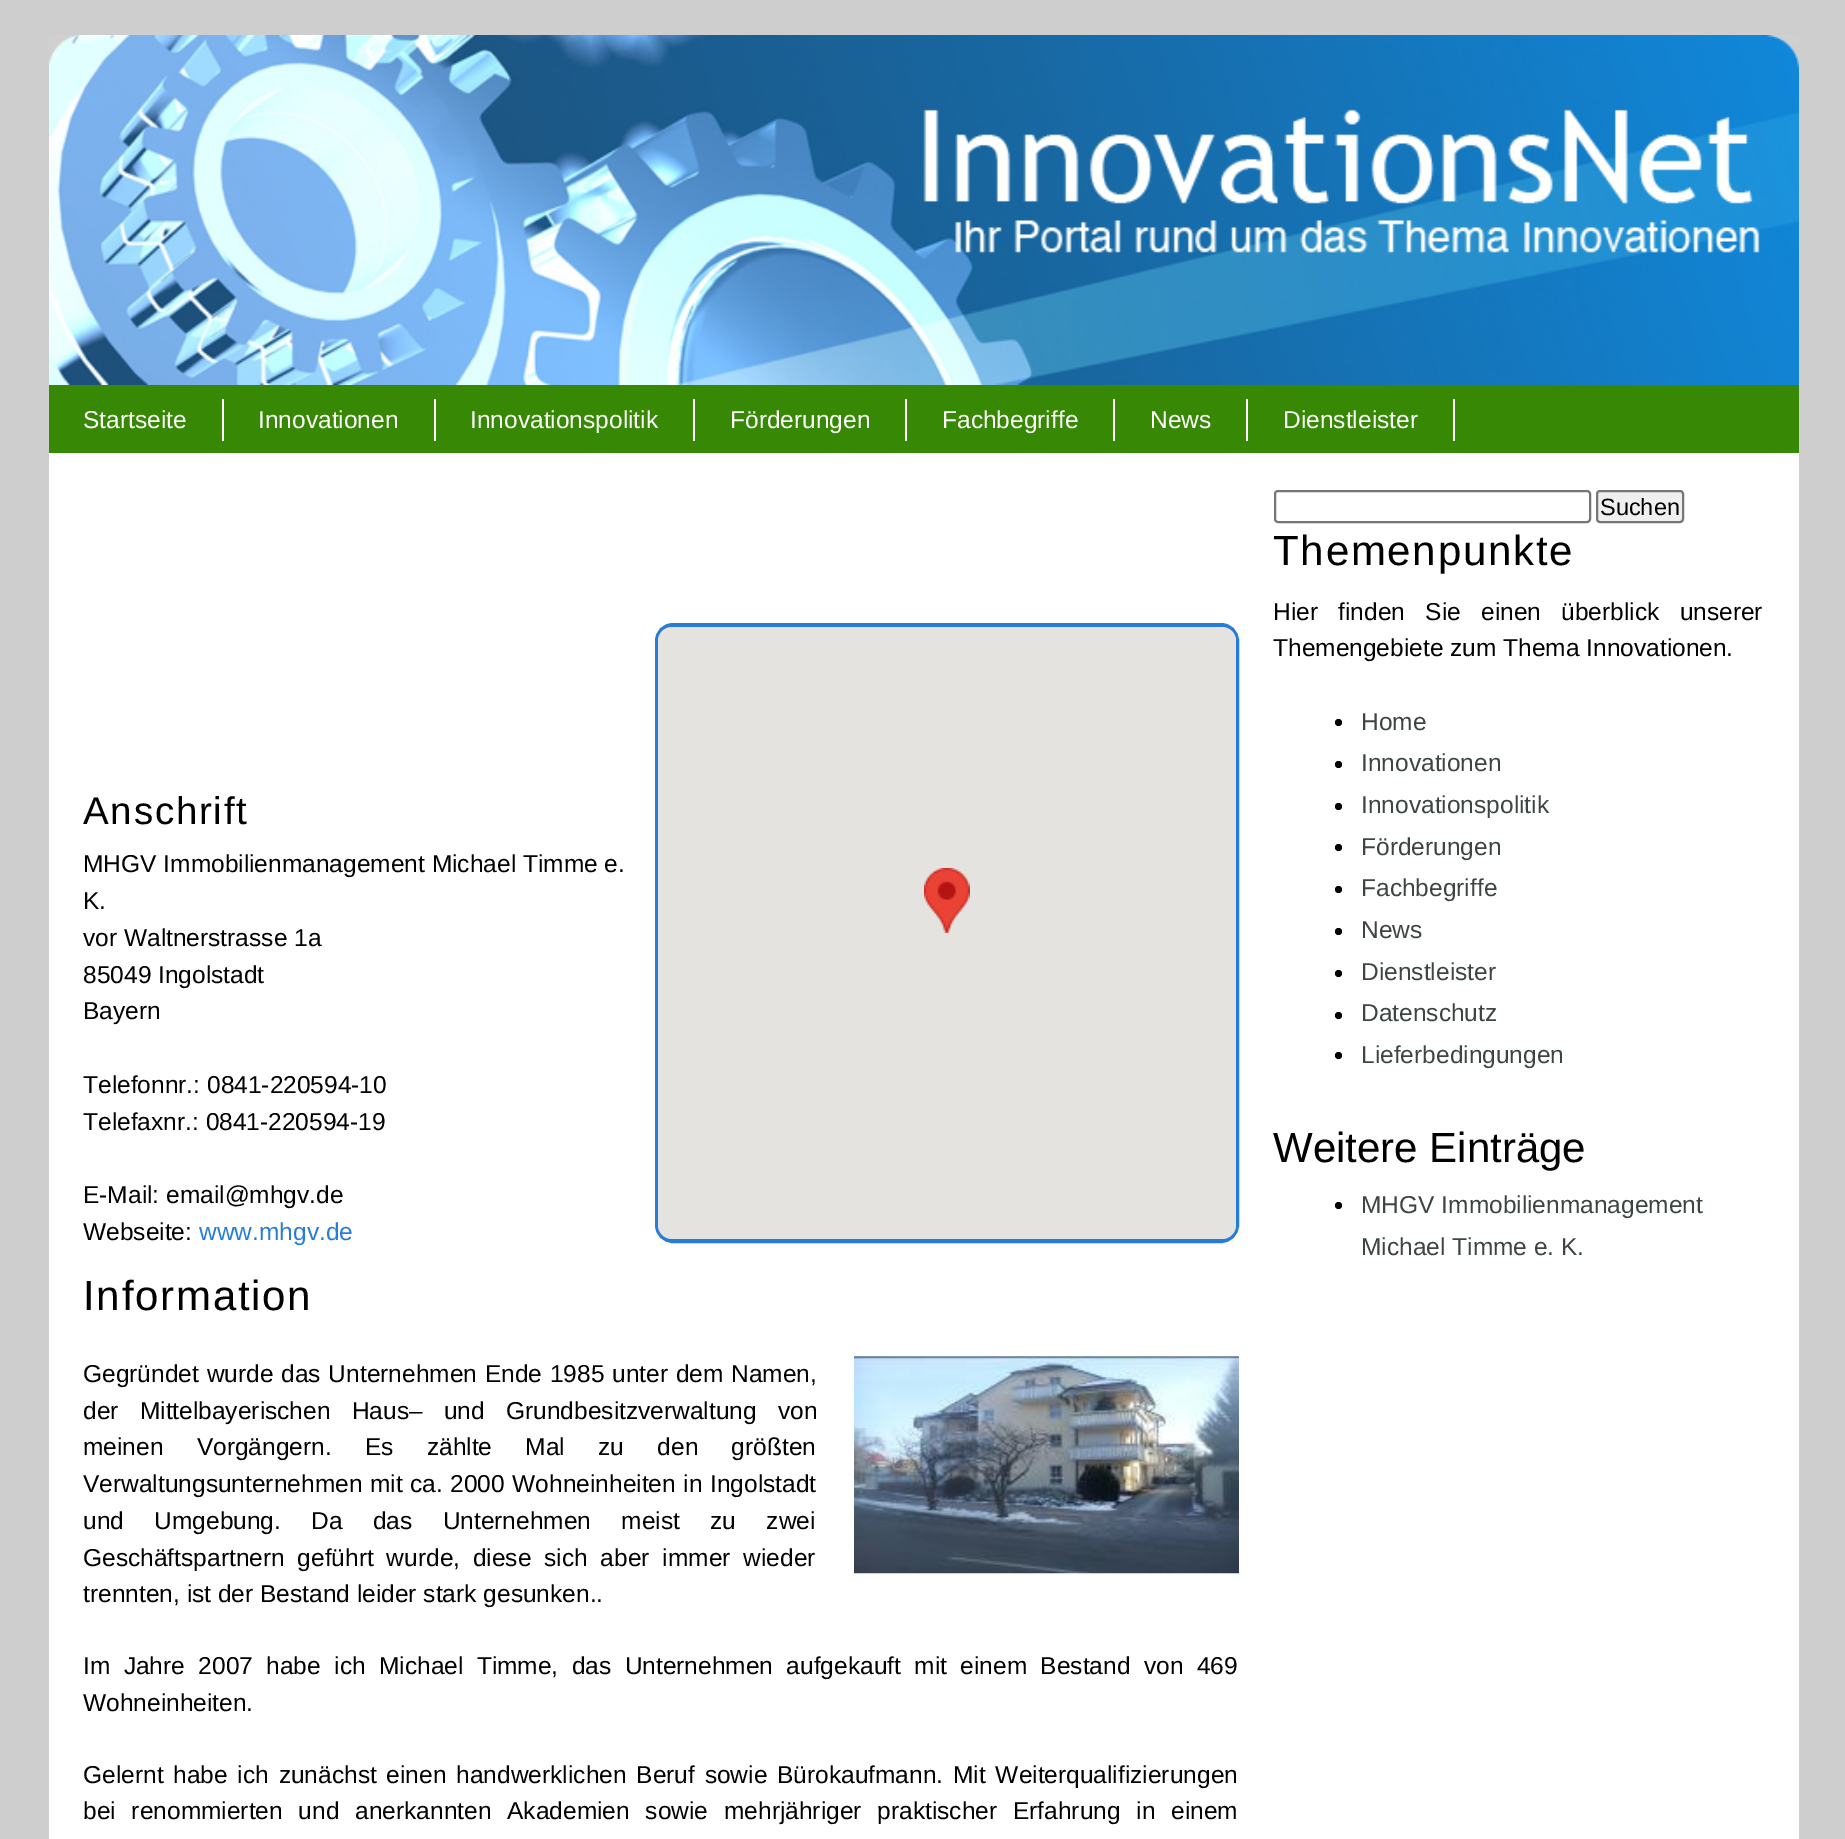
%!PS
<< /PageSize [1845 1839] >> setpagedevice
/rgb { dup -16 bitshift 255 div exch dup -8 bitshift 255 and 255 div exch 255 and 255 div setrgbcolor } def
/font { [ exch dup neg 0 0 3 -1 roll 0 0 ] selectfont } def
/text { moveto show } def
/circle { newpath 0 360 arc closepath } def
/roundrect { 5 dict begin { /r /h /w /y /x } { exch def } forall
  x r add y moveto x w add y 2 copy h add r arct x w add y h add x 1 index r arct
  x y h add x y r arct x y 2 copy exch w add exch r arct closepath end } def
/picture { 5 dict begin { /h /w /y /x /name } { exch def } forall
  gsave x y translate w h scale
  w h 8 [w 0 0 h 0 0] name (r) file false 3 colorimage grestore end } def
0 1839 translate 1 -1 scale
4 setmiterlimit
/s1 { /LiberationSans-Regular 24.5 font 16#FFFFFF rgb } def
/s2 { /LiberationSans-Regular 24.5 font 16#000000 rgb } def
/s3 { /LiberationSans-Regular 24.5 font 16#257DD7 rgb } def
/s4 { /LiberationSans-Regular 23.5 font 16#000000 rgb } def
/s5 { /LiberationSans-Regular 24.5 font 16#3C4543 rgb } def
/s6 { /LiberationSans-Regular 42 font 16#000000 rgb } def
16#CECECE rgb
0 0 1845 1839 rectfill
(pic1.raw) 49 35 1750 350 picture
16#378905 rgb
49 385 1750 68 rectfill
16#FFFFFF rgb
222 399 2 42 rectfill
s1
(Startseite) 83 428 text
434 399 2 42 rectfill
(Innovationen) 258 428 text
693 399 2 42 rectfill
(Innovationspolitik) 470 428 text
905 399 2 42 rectfill
(Förderungen) 730 428 text
1113 399 2 42 rectfill
(Fachbegriffe) 942 428 text
1246 399 2 42 rectfill
(News) 1150 428 text
1453 399 2 42 rectfill
(Dienstleister) 1283 428 text
49 453 1750 1386 rectfill
/LiberationSans-Regular 38.5 font
16#000000 rgb
83 824 moveto 1.75 0 (Anschrift) ashow
16#257DD7 rgb
4 setlinewidth
657 625 580 616 16 roundrect stroke
16#E5E3DF rgb
658 627 578 612 14 roundrect fill
(pic2.raw) 924 868 46 65 picture
s2
(MHGV Immobilienmanagement Michael Timme e.) 83 872 text
(K.) 83 909 text
(vor Waltnerstrasse 1a) 83 946 text
(85049 Ingolstadt) 83 983 text
(Bayern) 83 1019 text
(Telefonnr.: 0841-220594-10) 83 1093 text
(Telefaxnr.: 0841-220594-19) 83 1130 text
(E-Mail: email@mhgv.de) 83 1203 text
(Webseite:) 83 1240 text
s3
(www.mhgv.de) 199 1240 text
/LiberationSans-Regular 42 font
16#000000 rgb
83 1310 moveto 1.75 0 (Information) ashow
/LiberationSans-Regular 24.5 font
83 1382 moveto 1 0 32 (Gegründet wurde das Unternehmen Ende 1985 unter dem Namen,) widthshow
(pic3.raw) 854 1356 385 218 picture
83 1419 moveto 14.5 0 32 (der Mittelbayerischen Haus– und Grundbesitzverwaltung von) widthshow
83 1455 moveto 26.5 0 32 (meinen Vorgängern. Es zählte Mal zu den größten) widthshow
83 1492 moveto 0.75 0 32 (Verwaltungsunternehmen mit ca. 2000 Wohneinheiten in Ingolstadt) widthshow
83 1529 moveto 23.5 0 32 (und Umgebung. Da das Unternehmen meist zu zwei) widthshow
83 1566 moveto 6 0 32 (Geschäftspartnern geführt wurde, diese sich aber immer wieder) widthshow
(trennten, ist der Bestand leider stark gesunken..) 83 1602 text
83 1674 moveto 6.6 0 32 (Im Jahre 2007 habe ich Michael Timme, das Unternehmen aufgekauft mit einem Bestand von 469) widthshow
(Wohneinheiten.) 83 1711 text
83 1783 moveto 3 0 32 (Gelernt habe ich zunächst einen handwerklichen Beruf sowie Bürokaufmann. Mit Weiterqualifizierungen) widthshow
83 1819 moveto 9 0 32 (bei renommierten und anerkannten Akademien sowie mehrjähriger praktischer Erfahrung in einem) widthshow
16#767676 rgb
2 setlinewidth
1275 491 315 31 3 roundrect stroke
16#EFEFEF rgb
1597 491 86 31 3 roundrect gsave fill grestore
16#767676 rgb
stroke
s4
(Suchen) 1600 515 text
/LiberationSans-Regular 42 font
1273 565 moveto 1.75 0 (Themenpunkte) ashow
/LiberationSans-Regular 24.5 font
1273 620 moveto 13.5 0 32 (Hier finden Sie einen überblick unserer) widthshow
(Themengebiete zum Thema Innovationen.) 1273 656 text
1338.5 722.5 3.5 circle fill
s5
(Home) 1361 730 text
16#000000 rgb
1338.5 764.5 3.5 circle fill
s5
(Innovationen) 1361 771 text
16#000000 rgb
1338.5 806.5 3.5 circle fill
s5
(Innovationspolitik) 1361 813 text
16#000000 rgb
1338.5 847.5 3.5 circle fill
s5
(Förderungen) 1361 855 text
16#000000 rgb
1338.5 889.5 3.5 circle fill
s5
(Fachbegriffe) 1361 896 text
16#000000 rgb
1338.5 931.5 3.5 circle fill
s5
(News) 1361 938 text
16#000000 rgb
1338.5 973.5 3.5 circle fill
s5
(Dienstleister) 1361 980 text
16#000000 rgb
1338.5 1015.5 3.5 circle fill
s5
(Datenschutz) 1361 1021 text
16#000000 rgb
1338.5 1055.5 3.5 circle fill
s5
(Lieferbedingungen) 1361 1063 text
s6
(Weitere Einträge) 1273 1162 text
1338.5 1205.5 3.5 circle fill
s5
(MHGV Immobilienmanagement) 1361 1213 text
(Michael Timme e. K.) 1361 1255 text
showpage
